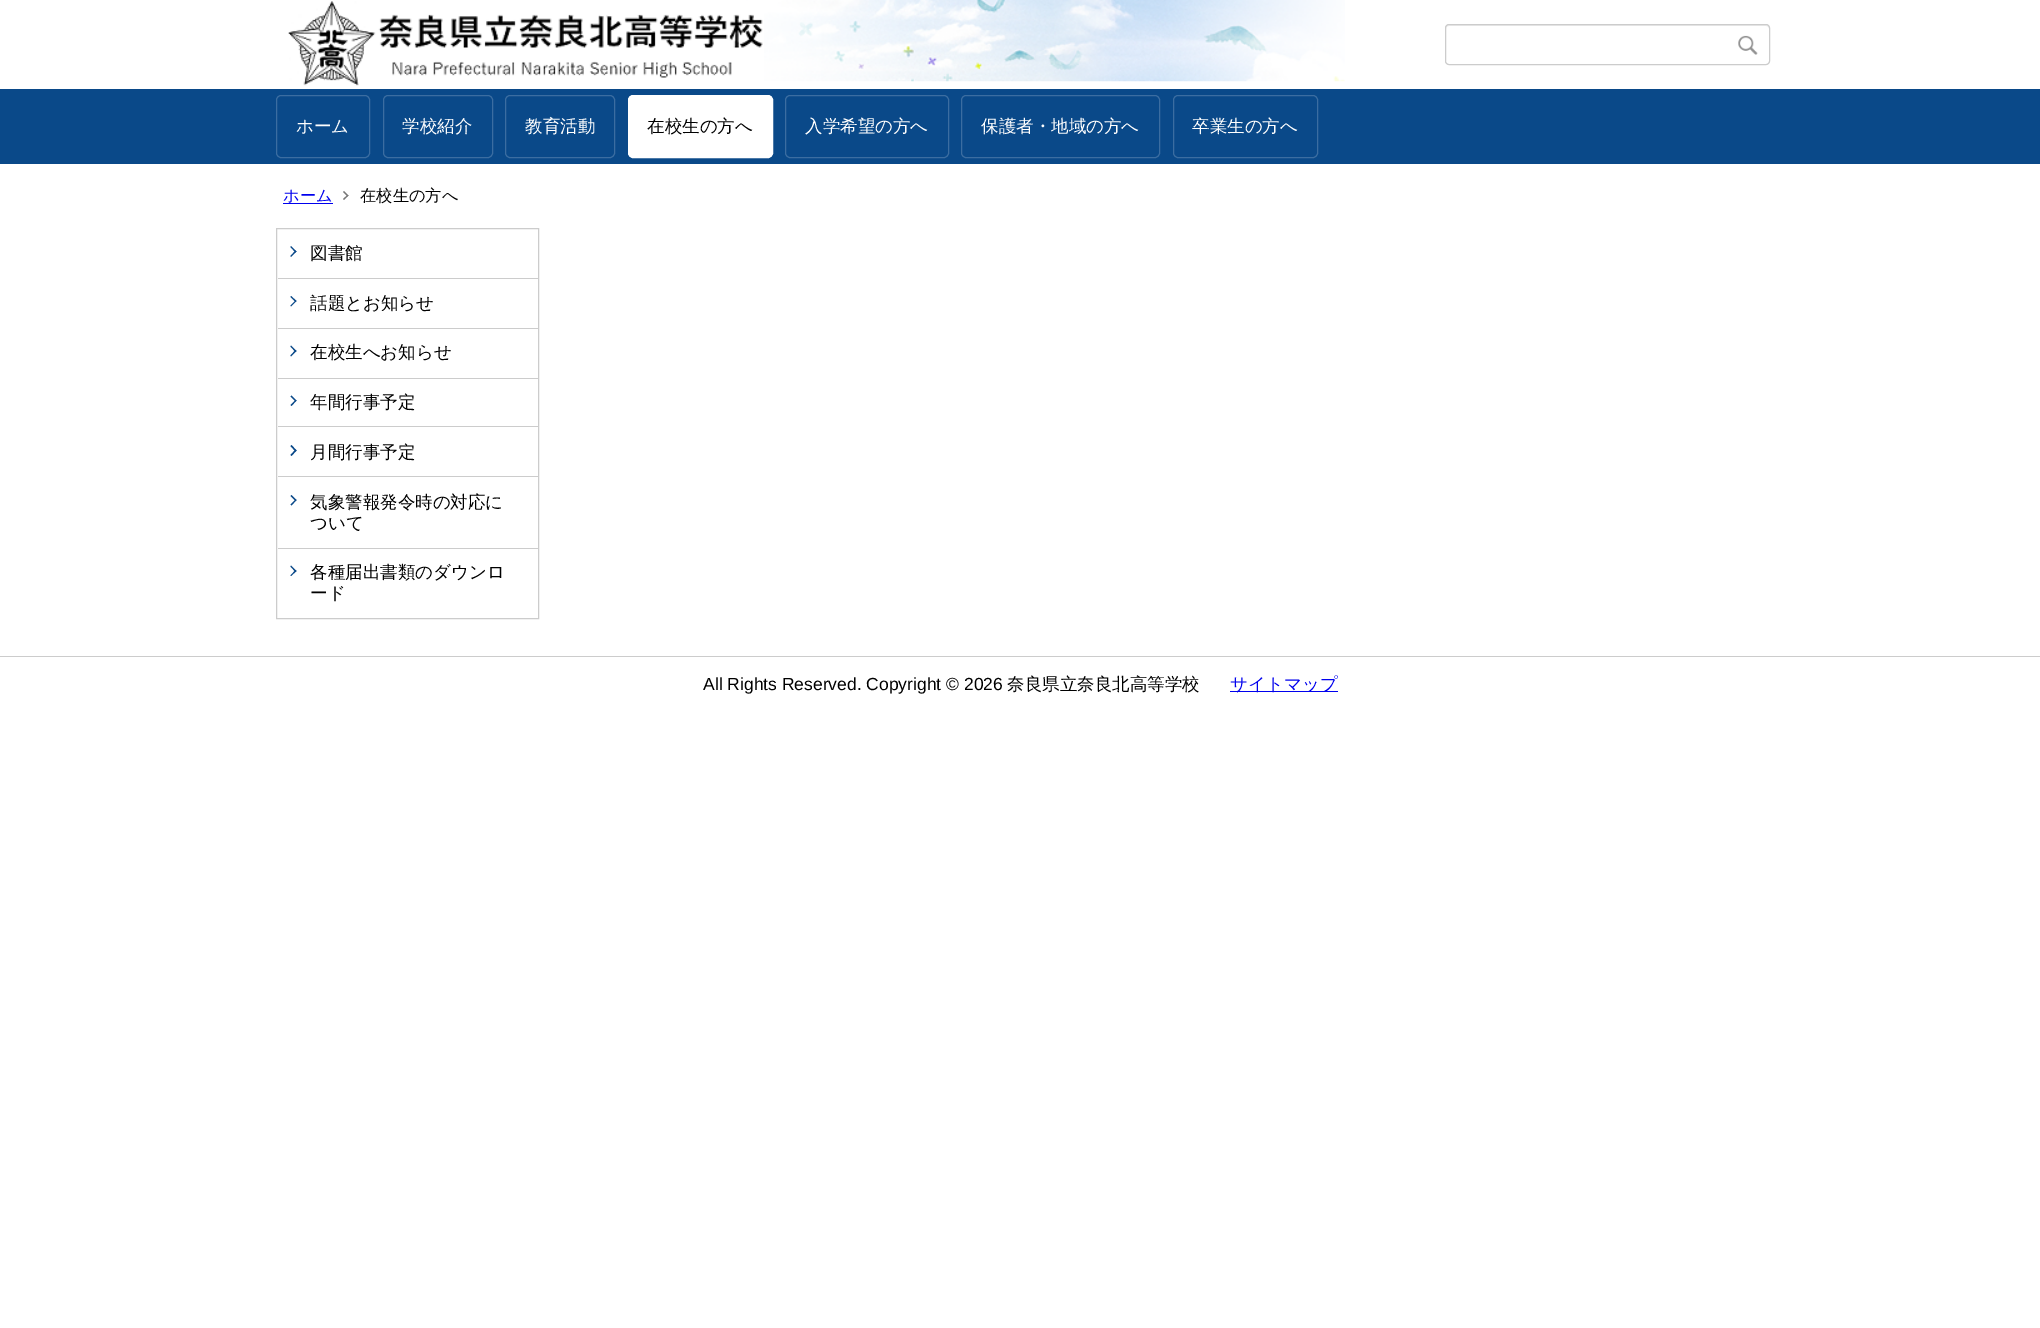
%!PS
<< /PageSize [2040 1328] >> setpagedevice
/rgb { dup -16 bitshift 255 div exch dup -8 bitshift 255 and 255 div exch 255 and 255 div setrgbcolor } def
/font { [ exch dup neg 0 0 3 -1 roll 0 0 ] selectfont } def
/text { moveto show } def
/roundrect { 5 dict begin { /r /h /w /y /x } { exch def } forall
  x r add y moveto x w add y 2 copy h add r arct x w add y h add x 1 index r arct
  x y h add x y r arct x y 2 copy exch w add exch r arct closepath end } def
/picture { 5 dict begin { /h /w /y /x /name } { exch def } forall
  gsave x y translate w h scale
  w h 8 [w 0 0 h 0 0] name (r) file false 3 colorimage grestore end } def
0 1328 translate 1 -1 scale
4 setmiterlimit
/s1 { /WenQuanYiZenHei-Medium 17.5 font 16#FFFFFF rgb } def
/s2 { /WenQuanYiZenHei-Medium 17.5 font 16#000000 rgb } def
/s3 { /WenQuanYiZenHei-Medium 16.25 font 16#0000EE rgb } def
/s4 { /WenQuanYiZenHei-Medium 16.25 font 16#000000 rgb } def
/s5 { /LiberationSans-Regular 17.5 font 16#000000 rgb } def
/s6 { /WenQuanYiZenHei-Medium 17.5 font 16#0000EE rgb } def
16#FFFFFF rgb
0 0 2040 1328 rectfill
(pic1.raw) 746 0 599 82 picture
(pic2.raw) 288 1 476 85 picture
16#ECECEC rgb
1449 26 moveto 1766 26 lineto 1768 26 1769 27 1769 29 curveto 1769 28 lineto 1769 26 1768 25 1766 25 curveto 1448 25 lineto 1447 25 1446 26 1446 28 curveto 1446 29 lineto 1446 27 1447 26 1449 26 curveto closepath fill
16#CCCCCC rgb
1445.5 24.5 324 40 3.5 roundrect stroke
(pic3.raw) 1738 35 20 20 picture
16#0A4989 rgb
0 89 2040 75 rectfill
16#3B6DA1 rgb
276.5 95.5 93 62 4.5 roundrect stroke
s1
(ホーム) 296 132 text
16#3B6DA1 rgb
383.5 95.5 109 62 4.5 roundrect stroke
s1
(学校紹介) 402 132 text
16#3B6DA1 rgb
505.5 95.5 109 62 4.5 roundrect stroke
s1
(教育活動) 525 132 text
628.5 95.5 144 62 4.5 roundrect gsave fill grestore
stroke
s2
(在校生の方へ) 647 132 text
16#3B6DA1 rgb
785.5 95.5 163 62 4.5 roundrect stroke
s1
(入学希望の方へ) 805 132 text
16#3B6DA1 rgb
961.5 95.5 198 62 4.5 roundrect stroke
s1
(保護者・地域の方へ) 981 132 text
16#3B6DA1 rgb
1173.5 95.5 144 62 4.5 roundrect stroke
s1
(卒業生の方へ) 1192 132 text
s3
(ホーム) 283 201 text
283 203 50 1 rectfill
16#777777 rgb
344 191 moveto 348.5 195.5 lineto 347.5 196.5 lineto 343 192 lineto closepath fill
347.5 195 moveto 348.5 195.5 lineto 344 200 lineto 343 199 lineto closepath fill
s4
(在校生の方へ) 360 201 text
16#CCCCCC rgb
276.5 228.5 262 390 rectstroke
16#0A4989 rgb
291 246 moveto 296.5 251.5 lineto 295.5 252.5 lineto 290.5 247 lineto closepath fill
295.5 250.5 moveto 296.5 251.5 lineto 291 257 lineto 290.5 256 lineto closepath fill
s2
(図書館) 310 259 text
16#CCCCCC rgb
278 278 260 1 rectfill
16#0A4989 rgb
291 296 moveto 296.5 301 lineto 295.5 302 lineto 290.5 297 lineto closepath fill
295.5 300.5 moveto 296.5 301 lineto 291 306.5 lineto 290.5 305.5 lineto closepath fill
s2
(話題とお知らせ) 310 309 text
16#CCCCCC rgb
278 328 260 1 rectfill
16#0A4989 rgb
291 345.5 moveto 296.5 351 lineto 295.5 352 lineto 290.5 346.5 lineto closepath fill
295.5 350 moveto 296.5 351 lineto 291 356.5 lineto 290.5 355.5 lineto closepath fill
s2
(在校生へお知らせ) 310 358 text
16#CCCCCC rgb
278 378 260 1 rectfill
16#0A4989 rgb
291.5 395.5 moveto 296.5 400.5 lineto 295.5 401.5 lineto 290.5 396.5 lineto closepath fill
295.5 400 moveto 296.5 400.5 lineto 291.5 406 lineto 290.5 405 lineto closepath fill
s2
(年間行事予定) 310 408 text
16#CCCCCC rgb
278 426 260 1 rectfill
16#0A4989 rgb
291.5 445 moveto 296.5 450.5 lineto 295.5 451.5 lineto 290.5 446 lineto closepath fill
295.5 449.5 moveto 296.5 450.5 lineto 291.5 456 lineto 290.5 455 lineto closepath fill
s2
(月間行事予定) 310 458 text
16#CCCCCC rgb
278 476 260 1 rectfill
16#0A4989 rgb
291.5 495 moveto 296.5 500 lineto 295.5 501 lineto 290.5 496 lineto closepath fill
295.5 499.5 moveto 296.5 500 lineto 291.5 505.5 lineto 290.5 504.5 lineto closepath fill
s2
(気象警報発令時の対応に) 310 508 text
(ついて) 310 529 text
16#CCCCCC rgb
278 548 260 1 rectfill
16#0A4989 rgb
291 565.5 moveto 296.5 571 lineto 295.5 572 lineto 290.5 566.5 lineto closepath fill
295.5 570 moveto 296.5 571 lineto 291 576 lineto 290.5 575.5 lineto closepath fill
s2
(各種届出書類のダウンロ) 310 578 text
(ード) 310 599 text
16#CCCCCC rgb
0 656 2040 1 rectfill
s5
(All Rights Reserved. Copyright © 2026) 703 690 text
s2
(奈良県立奈良北高等学校) 1007 690 text
16#0000EE rgb
1230 691 108 1 rectfill
(サイトマップ) 1230 690 text
showpage
